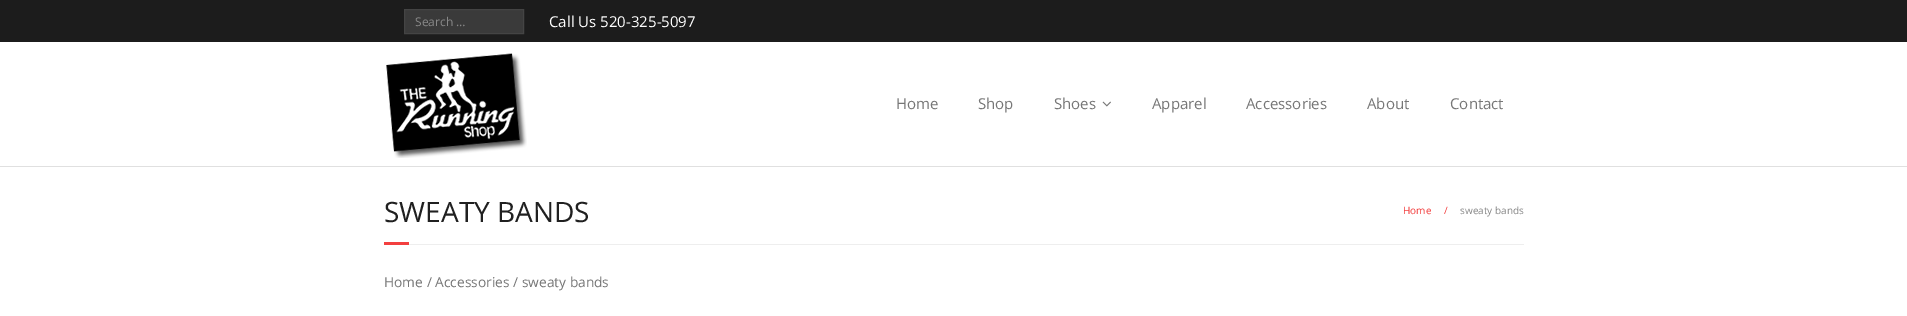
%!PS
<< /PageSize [1907 316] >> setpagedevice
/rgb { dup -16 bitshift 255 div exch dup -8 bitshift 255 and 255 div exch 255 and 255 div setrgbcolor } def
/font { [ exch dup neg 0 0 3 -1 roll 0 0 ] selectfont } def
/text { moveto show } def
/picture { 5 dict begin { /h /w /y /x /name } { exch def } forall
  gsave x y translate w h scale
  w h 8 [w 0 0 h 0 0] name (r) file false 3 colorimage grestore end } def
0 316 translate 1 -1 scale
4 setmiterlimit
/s1 { /OpenSans-Regular 12 font 16#888888 rgb } def
/s2 { /OpenSans-Regular 15 font 16#FFFFFF rgb } def
/s3 { /OpenSans-Regular 15 font 16#777777 rgb } def
/s4 { /OpenSans-Regular 28 font 16#202020 rgb } def
/s5 { /OpenSans-Regular 10 font 16#F33F3F rgb } def
/s6 { /OpenSans-Regular 10 font 16#888888 rgb } def
/s7 { /OpenSans-Regular 13.75 font 16#777777 rgb } def
16#FFFFFF rgb
0 0 1907 316 rectfill
16#1C1C1C rgb
0 0 1907 42 rectfill
16#3A3A3A rgb
404.5 9.5 moveto 523.5 9.5 lineto 523.5 33.5 lineto 404.5 33.5 lineto closepath gsave fill grestore
16#444444 rgb
stroke
s1
(Search …) 415 26 text
s2
(Call Us 520-325-5097) 549 27 text
16#E0E0E0 rgb
0 166 1907 1 rectfill
(pic1.raw) 386 53 141 105 picture
s3
(Home) 896 109 text
(Shop) 978 109 text
(Shoes) 1054 109 text
(pic2.raw) 1102 101 9 6 picture
(Apparel) 1152 109 text
(Accessories) 1246 109 text
(About) 1367 109 text
(Contact) 1450 109 text
s4
(SWEATY BANDS) 384 222 text
s5
(Home) 1403 214 text
(/) 1444 214 text
s6
(sweaty bands) 1460 214 text
16#F33F3F rgb
384 242 25 3 rectfill
16#EEEEEE rgb
409 244 1115 1 rectfill
s7
(Home / Accessories / sweaty bands) 384 287 text
showpage
